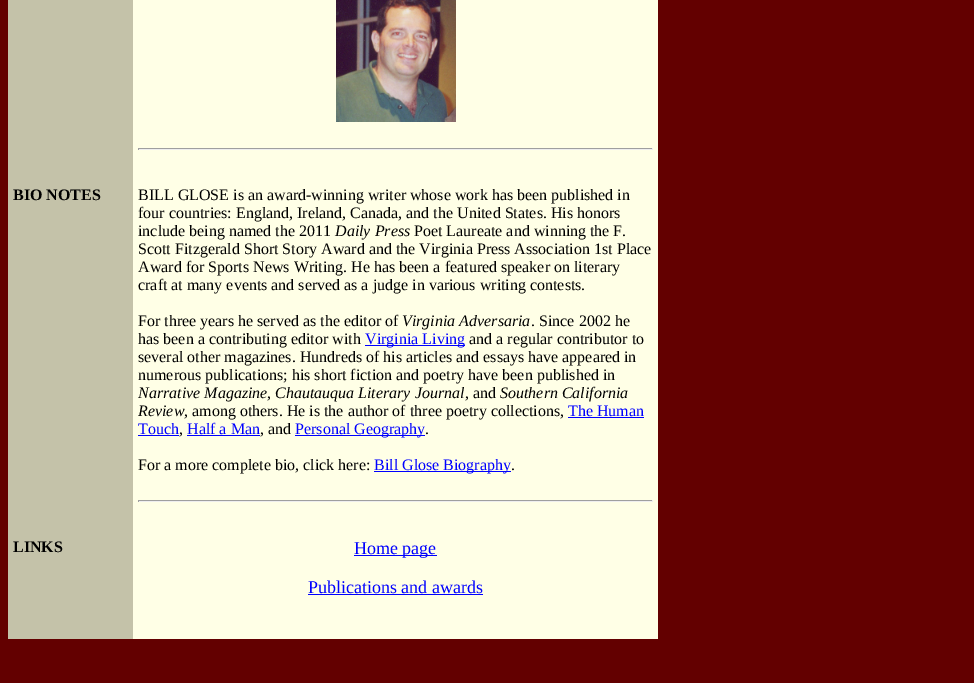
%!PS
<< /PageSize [974 683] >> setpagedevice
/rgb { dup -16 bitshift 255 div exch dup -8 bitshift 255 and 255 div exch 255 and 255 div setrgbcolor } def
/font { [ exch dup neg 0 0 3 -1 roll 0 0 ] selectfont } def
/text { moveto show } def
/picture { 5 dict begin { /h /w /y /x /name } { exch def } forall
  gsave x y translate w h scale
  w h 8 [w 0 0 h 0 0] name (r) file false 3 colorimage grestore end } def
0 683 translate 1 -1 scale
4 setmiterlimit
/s1 { /LiberationSerif-Bold 16 font 16#000000 rgb } def
/s2 { /LiberationSerif-Regular 16 font 16#000000 rgb } def
/s3 { /LiberationSerif-Italic 16 font 16#000000 rgb } def
/s4 { /LiberationSerif-Regular 16 font 16#0000FF rgb } def
/s5 { /LiberationSerif-Regular 18 font 16#0000FF rgb } def
16#630000 rgb
0 0 974 683 rectfill
16#C4C2A9 rgb
8 0 125 639 rectfill
16#FFFFE6 rgb
133 0 525 639 rectfill
(pic1.raw) 336 0 120 122 picture
16#9F9F9F rgb
138 148 515 1 rectfill
16#EEEEEE rgb
652 148 1 2 rectfill
138 149 515 1 rectfill
16#9F9F9F rgb
138 148 1 2 rectfill
s1
(BIO NOTES) 13 200 text
s2
(BILL GLOSE is an award-winning writer whose work has been published in) 138 200 text
(four countries: England, Ireland, Canada, and the United States. His honors) 138 218 text
(include being named the 2011) 138 236 text
s3
(Daily Press) 335 236 text
s2
(Poet Laureate and winning the F.) 414 236 text
(Scott Fitzgerald Short Story Award and the Virginia Press Association 1st Place) 138 254 text
(Award for Sports News Writing. He has been a featured speaker on literary) 138 272 text
(craft at many events and served as a judge in various writing contests.) 138 290 text
(For three years he served as the editor of) 138 326 text
s3
(Virginia Adversaria) 402 326 text
s2
(. Since 2002 he) 531 326 text
(has been a contributing editor with) 138 344 text
16#0000FF rgb
365 345 100 1 rectfill
(Virginia Living) 365 344 text
s2
(and a regular contributor to) 469 344 text
(several other magazines. Hundreds of his articles and essays have appeared in) 138 362 text
(numerous publications; his short fiction and poetry have been published in) 138 380 text
s3
(Narrative Magazine) 138 398 text
s2
(,) 267 398 text
s3
(Chautauqua Literary Journal) 275 398 text
s2
(, and) 465 398 text
s3
(Southern California) 500 398 text
(Review) 138 416 text
s2
(, among others. He is the author of three poetry collections,) 184 416 text
s4
(The Human) 568 416 text
568 417 76 1 rectfill
(Touch) 138 434 text
138 435 41 1 rectfill
s2
(,) 179 434 text
s4
(Half a Man) 187 434 text
187 435 73 1 rectfill
s2
(, and) 260 434 text
16#0000FF rgb
295 435 130 1 rectfill
(Personal Geography) 295 434 text
s2
(.) 425 434 text
(For a more complete bio, click here:) 138 470 text
16#0000FF rgb
374 471 137 1 rectfill
(Bill Glose Biography) 374 470 text
s2
(.) 511 470 text
16#9F9F9F rgb
138 500 515 1 rectfill
16#EEEEEE rgb
652 500 1 2 rectfill
138 501 515 1 rectfill
16#9F9F9F rgb
138 500 1 2 rectfill
s1
(LINKS) 13 552 text
16#0000FF rgb
354 555 83 1 rectfill
s5
(Home page) 354 554 text
(Publications and awards) 308 593 text
308 594 175 1 rectfill
showpage
